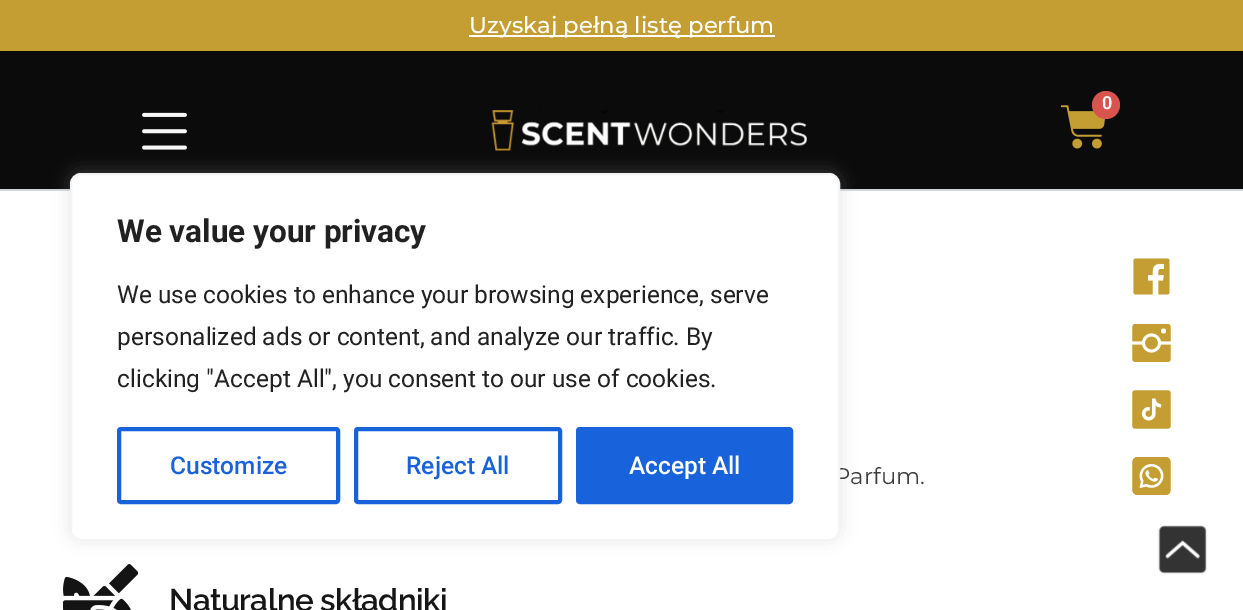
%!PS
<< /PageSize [1243 610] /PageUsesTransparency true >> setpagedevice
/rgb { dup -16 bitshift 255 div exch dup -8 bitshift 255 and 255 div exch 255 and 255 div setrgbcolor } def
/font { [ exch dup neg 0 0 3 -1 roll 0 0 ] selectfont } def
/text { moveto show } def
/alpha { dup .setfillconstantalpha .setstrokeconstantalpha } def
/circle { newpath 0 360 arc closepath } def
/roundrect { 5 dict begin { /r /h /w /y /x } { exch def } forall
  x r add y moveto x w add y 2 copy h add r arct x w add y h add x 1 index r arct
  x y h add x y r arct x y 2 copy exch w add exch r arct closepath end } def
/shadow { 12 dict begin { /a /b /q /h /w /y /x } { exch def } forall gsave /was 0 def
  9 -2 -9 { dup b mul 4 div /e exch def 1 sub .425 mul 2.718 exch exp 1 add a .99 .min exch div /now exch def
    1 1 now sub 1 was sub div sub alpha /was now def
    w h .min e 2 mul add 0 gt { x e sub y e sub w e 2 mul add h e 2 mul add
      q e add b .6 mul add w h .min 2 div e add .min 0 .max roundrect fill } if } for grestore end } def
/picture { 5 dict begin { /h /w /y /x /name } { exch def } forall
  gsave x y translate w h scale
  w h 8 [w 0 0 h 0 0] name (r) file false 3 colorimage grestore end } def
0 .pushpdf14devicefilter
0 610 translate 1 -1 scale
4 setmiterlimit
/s1 { /Montserrat-Medium 22.75 font 16#FFFFFF rgb } def
/s2 { /Roboto-SemiBold 18 font 16#FFFFFF rgb } def
/s3 { /Montserrat-Regular 22.75 font 16#3D3D3D rgb } def
/s4 { /Roboto-Bold 31.5 font 16#212121 rgb } def
/s5 { /Roboto-Regular 24.5 font 16#212121 rgb } def
/s6 { /Roboto-Medium 24.5 font 16#1863DC rgb } def
/s7 { /Roboto-Medium 24.5 font 16#FFFFFF rgb } def
16#FFFFFF rgb
0 0 1243 610 rectfill
16#0C0B0B rgb
0 51 1243 138 rectfill
16#C49E32 rgb
0 0 1243 51 rectfill
16#FFFFFF rgb
469 35 306 2 rectfill
s1
(Uzyskaj pełną listę perfum) 469 33 text
16#D0D5DD rgb
0 189 1243 2 rectfill
(pic1.raw) 1061 105 44 44 picture
16#D9534F rgb
1106 105 14 circle fill
s2
(0) 1102 109 text
(pic2.raw) 142 112 45 38 picture
(pic3.raw) 491 110 316 41 picture
(pic8.raw) 63 564 75 46 picture
16#ACABAB rgb
70 172 770 367 11 9 0.3 shadow
s3
(Parfum.) 834 484 text
16#FFFFFF rgb
71 174 768 366 10 roundrect gsave fill grestore
16#F4F4F4 rgb
2 setlinewidth
stroke
s4
(We value your privacy) 117 242 text
s5
(We use cookies to enhance your browsing experience, serve) 117 303 text
(personalized ads or content, and analyze our traffic. By) 117 345 text
(clicking "Accept All", you consent to our use of cookies.) 117 387 text
16#1863DC rgb
4 setlinewidth
119 429 219 73 2 roundrect stroke
s6
(Customize) 170 474 text
356 429 204 73 2 roundrect stroke
(Reject All) 406 474 text
578 429 213 73 2 roundrect gsave fill grestore
stroke
s7
(Accept All) 629 474 text
(pic4.raw) 1133 258 37 37 picture
(pic5.raw) 1132 324 39 38 picture
(pic6.raw) 1132 390 39 39 picture
(pic7.raw) 1132 457 39 38 picture
/Raleway-SemiBold 31.5 font
16#161616 rgb
169 611 moveto -0.6 0 (Naturalne składniki) ashow
(pic9.raw) 1158 525 49 49 picture
.poppdf14devicefilter showpage
